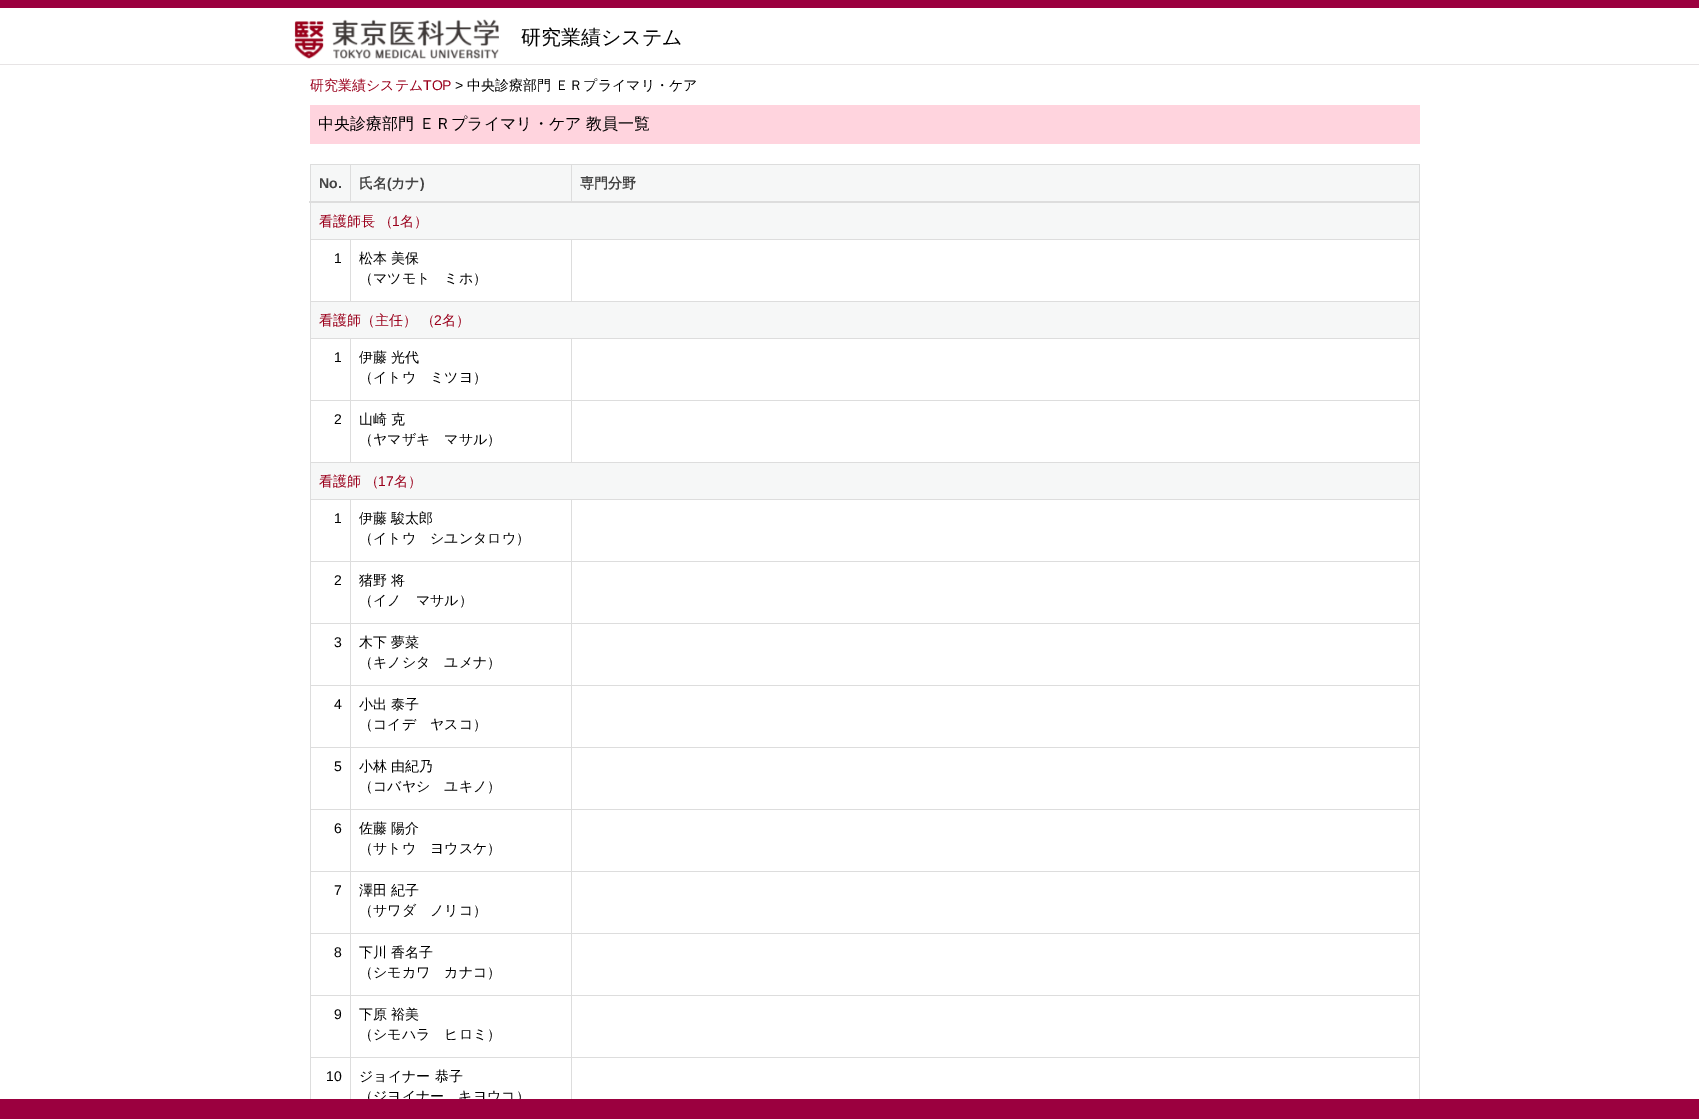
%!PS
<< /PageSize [1699 1119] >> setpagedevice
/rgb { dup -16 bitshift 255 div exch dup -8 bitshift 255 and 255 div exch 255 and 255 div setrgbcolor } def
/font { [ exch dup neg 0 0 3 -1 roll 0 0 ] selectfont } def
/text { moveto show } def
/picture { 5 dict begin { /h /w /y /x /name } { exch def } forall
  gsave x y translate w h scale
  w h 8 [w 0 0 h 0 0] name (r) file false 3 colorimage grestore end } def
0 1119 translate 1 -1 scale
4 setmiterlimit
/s1 { /WenQuanYiZenHei-Medium 20 font 16#000000 rgb } def
/s2 { /WenQuanYiZenHei-Medium 14 font 16#9A001B rgb } def
/s3 { /LiberationSans-Regular 14 font 16#9A001B rgb } def
/s4 { /LiberationSans-Regular 14 font 16#000000 rgb } def
/s5 { /WenQuanYiZenHei-Medium 14 font 16#000000 rgb } def
/s6 { /WenQuanYiZenHei-Medium 16 font 16#000000 rgb } def
/s7 { /LiberationSans-Bold 14 font 16#444444 rgb } def
/s8 { /WenQuanYiZenHei-Bold 14 font 16#444444 rgb } def
16#FFFFFF rgb
0 0 1699 1119 rectfill
16#9B003F rgb
0 0 1699 8 rectfill
16#E7E4E5 rgb
0 64 1699 1 rectfill
(pic1.raw) 294 19 205 40 picture
s1
(研究業績システム) 521 44 text
s2
(研究業績システム) 310 90 text
s3
(TOP) 423 90 text
s4
(>) 455 90 text
s5
(中央診療部門 ＥＲプライマリ・ケア) 467 90 text
16#FFD4DE rgb
310 105 1110 39 rectfill
s6
(中央診療部門 ＥＲプライマリ・ケア 教員一覧) 318 129 text
16#DDDDDD rgb
310 164 1110 1 rectfill
1419 164 1 935 rectfill
310 164 1 935 rectfill
16#F6F7F7 rgb
311 165 39 36 rectfill
s7
(No.) 319 188 text
16#F6F7F7 rgb
351 165 220 36 rectfill
16#DDDDDD rgb
350 164 1 38 rectfill
s8
(氏名) 359 188 text
s7
(\() 387 188 text
s8
(カナ) 391 188 text
s7
(\)) 420 188 text
16#F6F7F7 rgb
572 165 847 36 rectfill
16#DDDDDD rgb
571 164 1 38 rectfill
309 201 1111 2 rectfill
s8
(専門分野) 580 188 text
16#F6F7F7 rgb
311 203 1108 36 rectfill
s2
(看護師長 （) 319 226 text
s3
(1) 392 226 text
s2
(名）) 400 226 text
16#DDDDDD rgb
571 239 849 1 rectfill
310 301 1110 1 rectfill
571 239 1 63 rectfill
350 239 222 1 rectfill
350 239 1 63 rectfill
310 239 41 1 rectfill
s4
(1) 334 263 text
s5
(松本 美保) 359 263 text
(（マツモト　ミホ）) 359 283 text
16#F6F7F7 rgb
311 302 1108 36 rectfill
s2
(看護師（主任） （) 319 325 text
s3
(2) 434 325 text
s2
(名）) 442 325 text
16#DDDDDD rgb
571 338 849 1 rectfill
571 400 849 1 rectfill
310 462 1110 1 rectfill
571 400 1 63 rectfill
350 400 222 1 rectfill
571 338 1 63 rectfill
350 338 222 1 rectfill
350 400 1 63 rectfill
310 400 41 1 rectfill
350 338 1 63 rectfill
310 338 41 1 rectfill
s4
(1) 334 362 text
s5
(伊藤 光代) 359 362 text
(（イトウ　ミツヨ）) 359 382 text
s4
(2) 334 424 text
s5
(山崎 克) 359 424 text
(（ヤマザキ　マサル）) 359 444 text
16#F6F7F7 rgb
311 463 1108 36 rectfill
s2
(看護師 （) 319 486 text
s3
(17) 378 486 text
s2
(名）) 394 486 text
16#DDDDDD rgb
571 499 849 1 rectfill
571 561 849 1 rectfill
571 623 849 1 rectfill
571 685 849 1 rectfill
571 747 849 1 rectfill
571 809 849 1 rectfill
571 871 849 1 rectfill
571 933 849 1 rectfill
571 995 849 1 rectfill
571 1057 849 1 rectfill
571 1057 1 42 rectfill
350 1057 222 1 rectfill
571 995 1 63 rectfill
350 995 222 1 rectfill
571 933 1 63 rectfill
350 933 222 1 rectfill
571 871 1 63 rectfill
350 871 222 1 rectfill
571 809 1 63 rectfill
350 809 222 1 rectfill
571 747 1 63 rectfill
350 747 222 1 rectfill
571 685 1 63 rectfill
350 685 222 1 rectfill
571 623 1 63 rectfill
350 623 222 1 rectfill
571 561 1 63 rectfill
350 561 222 1 rectfill
571 499 1 63 rectfill
350 499 222 1 rectfill
350 1057 1 42 rectfill
310 1057 41 1 rectfill
350 995 1 63 rectfill
310 995 41 1 rectfill
350 933 1 63 rectfill
310 933 41 1 rectfill
350 871 1 63 rectfill
310 871 41 1 rectfill
350 809 1 63 rectfill
310 809 41 1 rectfill
350 747 1 63 rectfill
310 747 41 1 rectfill
350 685 1 63 rectfill
310 685 41 1 rectfill
350 623 1 63 rectfill
310 623 41 1 rectfill
350 561 1 63 rectfill
310 561 41 1 rectfill
350 499 1 63 rectfill
310 499 41 1 rectfill
s4
(1) 334 523 text
s5
(伊藤 駿太郎) 359 523 text
(（イトウ　シユンタロウ）) 359 543 text
s4
(2) 334 585 text
s5
(猪野 将) 359 585 text
(（イノ　マサル）) 359 605 text
s4
(3) 334 647 text
s5
(木下 夢菜) 359 647 text
(（キノシタ　ユメナ）) 359 667 text
s4
(4) 334 709 text
s5
(小出 泰子) 359 709 text
(（コイデ　ヤスコ）) 359 729 text
s4
(5) 334 771 text
s5
(小林 由紀乃) 359 771 text
(（コバヤシ　ユキノ）) 359 791 text
s4
(6) 334 833 text
s5
(佐藤 陽介) 359 833 text
(（サトウ　ヨウスケ）) 359 853 text
s4
(7) 334 895 text
s5
(澤田 紀子) 359 895 text
(（サワダ　ノリコ）) 359 915 text
s4
(8) 334 957 text
s5
(下川 香名子) 359 957 text
(（シモカワ　カナコ）) 359 977 text
s4
(9) 334 1019 text
s5
(下原 裕美) 359 1019 text
(（シモハラ　ヒロミ）) 359 1039 text
s4
(10) 326 1081 text
s5
(ジョイナー 恭子) 359 1081 text
(（ジヨイナー　キヨウコ）) 359 1101 text
16#9B003F rgb
0 1099 1699 20 rectfill
showpage
